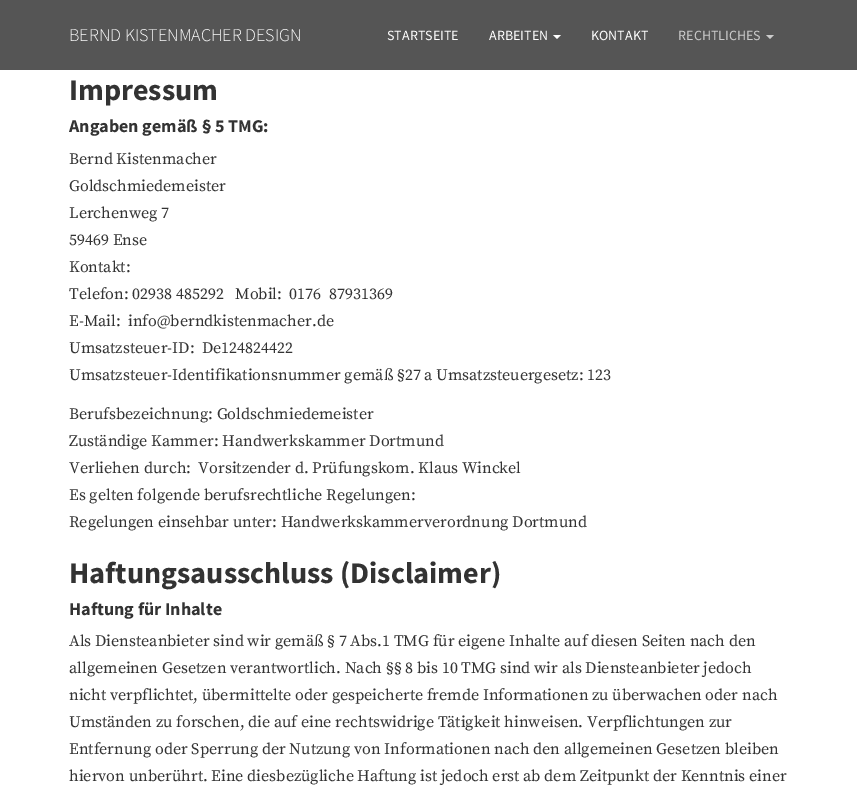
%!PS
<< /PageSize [857 801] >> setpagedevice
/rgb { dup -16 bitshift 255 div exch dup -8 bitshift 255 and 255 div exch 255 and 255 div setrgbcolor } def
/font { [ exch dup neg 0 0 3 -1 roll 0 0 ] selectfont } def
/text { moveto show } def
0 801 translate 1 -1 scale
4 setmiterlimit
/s1 { /SourceSansPro-Light 18 font 16#FFFFFF rgb } def
/s2 { /SourceSansPro-Regular 14 font 16#FFFFFF rgb } def
/s3 { /SourceSansPro-Regular 14 font 16#CCCCCC rgb } def
/s4 { /SourceSansPro-Bold 30 font 16#333333 rgb } def
/s5 { /SourceSansPro-Bold 18 font 16#333333 rgb } def
/s6 { /SourceSerifPro-Regular 16 font 16#333333 rgb } def
16#FFFFFF rgb
0 0 857 801 rectfill
16#555555 rgb
0 0 857 70 rectfill
s1
(BERND KISTENMACHER DESIGN) 69 41 text
s2
(STARTSEITE) 387 40 text
(ARBEITEN) 489 40 text
553 35 moveto 561 35 lineto 557 39 lineto closepath fill
(KONTAKT) 591 40 text
s3
(RECHTLICHES) 678 40 text
766 35 moveto 774 35 lineto 770 39 lineto closepath fill
s4
(Impressum) 69 100 text
s5
(Angaben gemäß § 5 TMG:) 69 132 text
s6
(Bernd Kistenmacher) 69 164 text
(Goldschmiedemeister) 69 191 text
(Lerchenweg 7) 69 218 text
(59469 Ense) 69 245 text
(Kontakt:) 69 272 text
(Telefon: 02938 485292   Mobil:  0176  87931369) 69 299 text
(E-Mail:  info@berndkistenmacher.de) 69 326 text
(Umsatzsteuer-ID:  De124824422) 69 353 text
(Umsatzsteuer-Identifikationsnummer gemäß §27 a Umsatzsteuergesetz: 123) 69 380 text
(Berufsbezeichnung: Goldschmiedemeister) 69 419 text
(Zuständige Kammer: Handwerkskammer Dortmund) 69 446 text
(Verliehen durch:  Vorsitzender d. Prüfungskom. Klaus Winckel) 69 473 text
(Es gelten folgende berufsrechtliche Regelungen:) 69 500 text
(Regelungen einsehbar unter: Handwerkskammerverordnung Dortmund) 69 527 text
s4
(Haftungsausschluss \(Disclaimer\)) 69 583 text
s5
(Haftung für Inhalte) 69 615 text
s6
(Als Diensteanbieter sind wir gemäß § 7 Abs.1 TMG für eigene Inhalte auf diesen Seiten nach den) 69 646 text
(allgemeinen Gesetzen verantwortlich. Nach §§ 8 bis 10 TMG sind wir als Diensteanbieter jedoch) 69 673 text
(nicht verpflichtet, übermittelte oder gespeicherte fremde Informationen zu überwachen oder nach) 69 700 text
(Umständen zu forschen, die auf eine rechtswidrige Tätigkeit hinweisen. Verpflichtungen zur) 69 727 text
(Entfernung oder Sperrung der Nutzung von Informationen nach den allgemeinen Gesetzen bleiben) 69 754 text
(hiervon unberührt. Eine diesbezügliche Haftung ist jedoch erst ab dem Zeitpunkt der Kenntnis einer) 69 781 text
showpage
